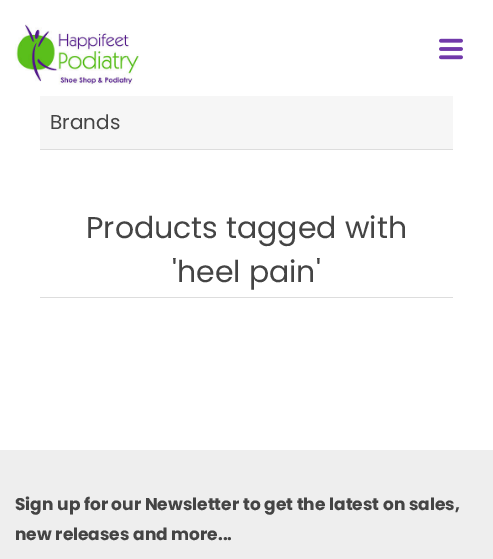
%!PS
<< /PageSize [493 559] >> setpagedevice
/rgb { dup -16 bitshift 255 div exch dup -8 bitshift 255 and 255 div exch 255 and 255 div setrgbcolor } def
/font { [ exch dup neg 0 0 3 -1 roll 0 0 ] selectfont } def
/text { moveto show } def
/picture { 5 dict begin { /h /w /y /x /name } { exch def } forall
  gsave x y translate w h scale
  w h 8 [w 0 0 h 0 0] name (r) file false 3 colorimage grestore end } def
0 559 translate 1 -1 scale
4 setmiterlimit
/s1 { /Poppins-Regular 20 font 16#444444 rgb } def
/s2 { /Poppins-Regular 30 font 16#444444 rgb } def
/s3 { /Poppins-Bold 17 font 16#444444 rgb } def
16#FFFFFF rgb
0 0 493 559 rectfill
(pic1.raw) 15 24 124 61 picture
(pic2.raw) 439 38 24 22 picture
16#F6F6F6 rgb
40 96 413 53 rectfill
16#DDDDDD rgb
40 149 413 1 rectfill
s1
(Brands) 50 129 text
16#DDDDDD rgb
40 297 413 1 rectfill
s2
(Products tagged with) 86 238 text
('heel pain') 172 282 text
16#EEEEEE rgb
0 450 493 109 rectfill
s3
(Sign up for our Newsletter to get the latest on sales,) 15 510 text
(new releases and more...) 15 540 text
showpage
